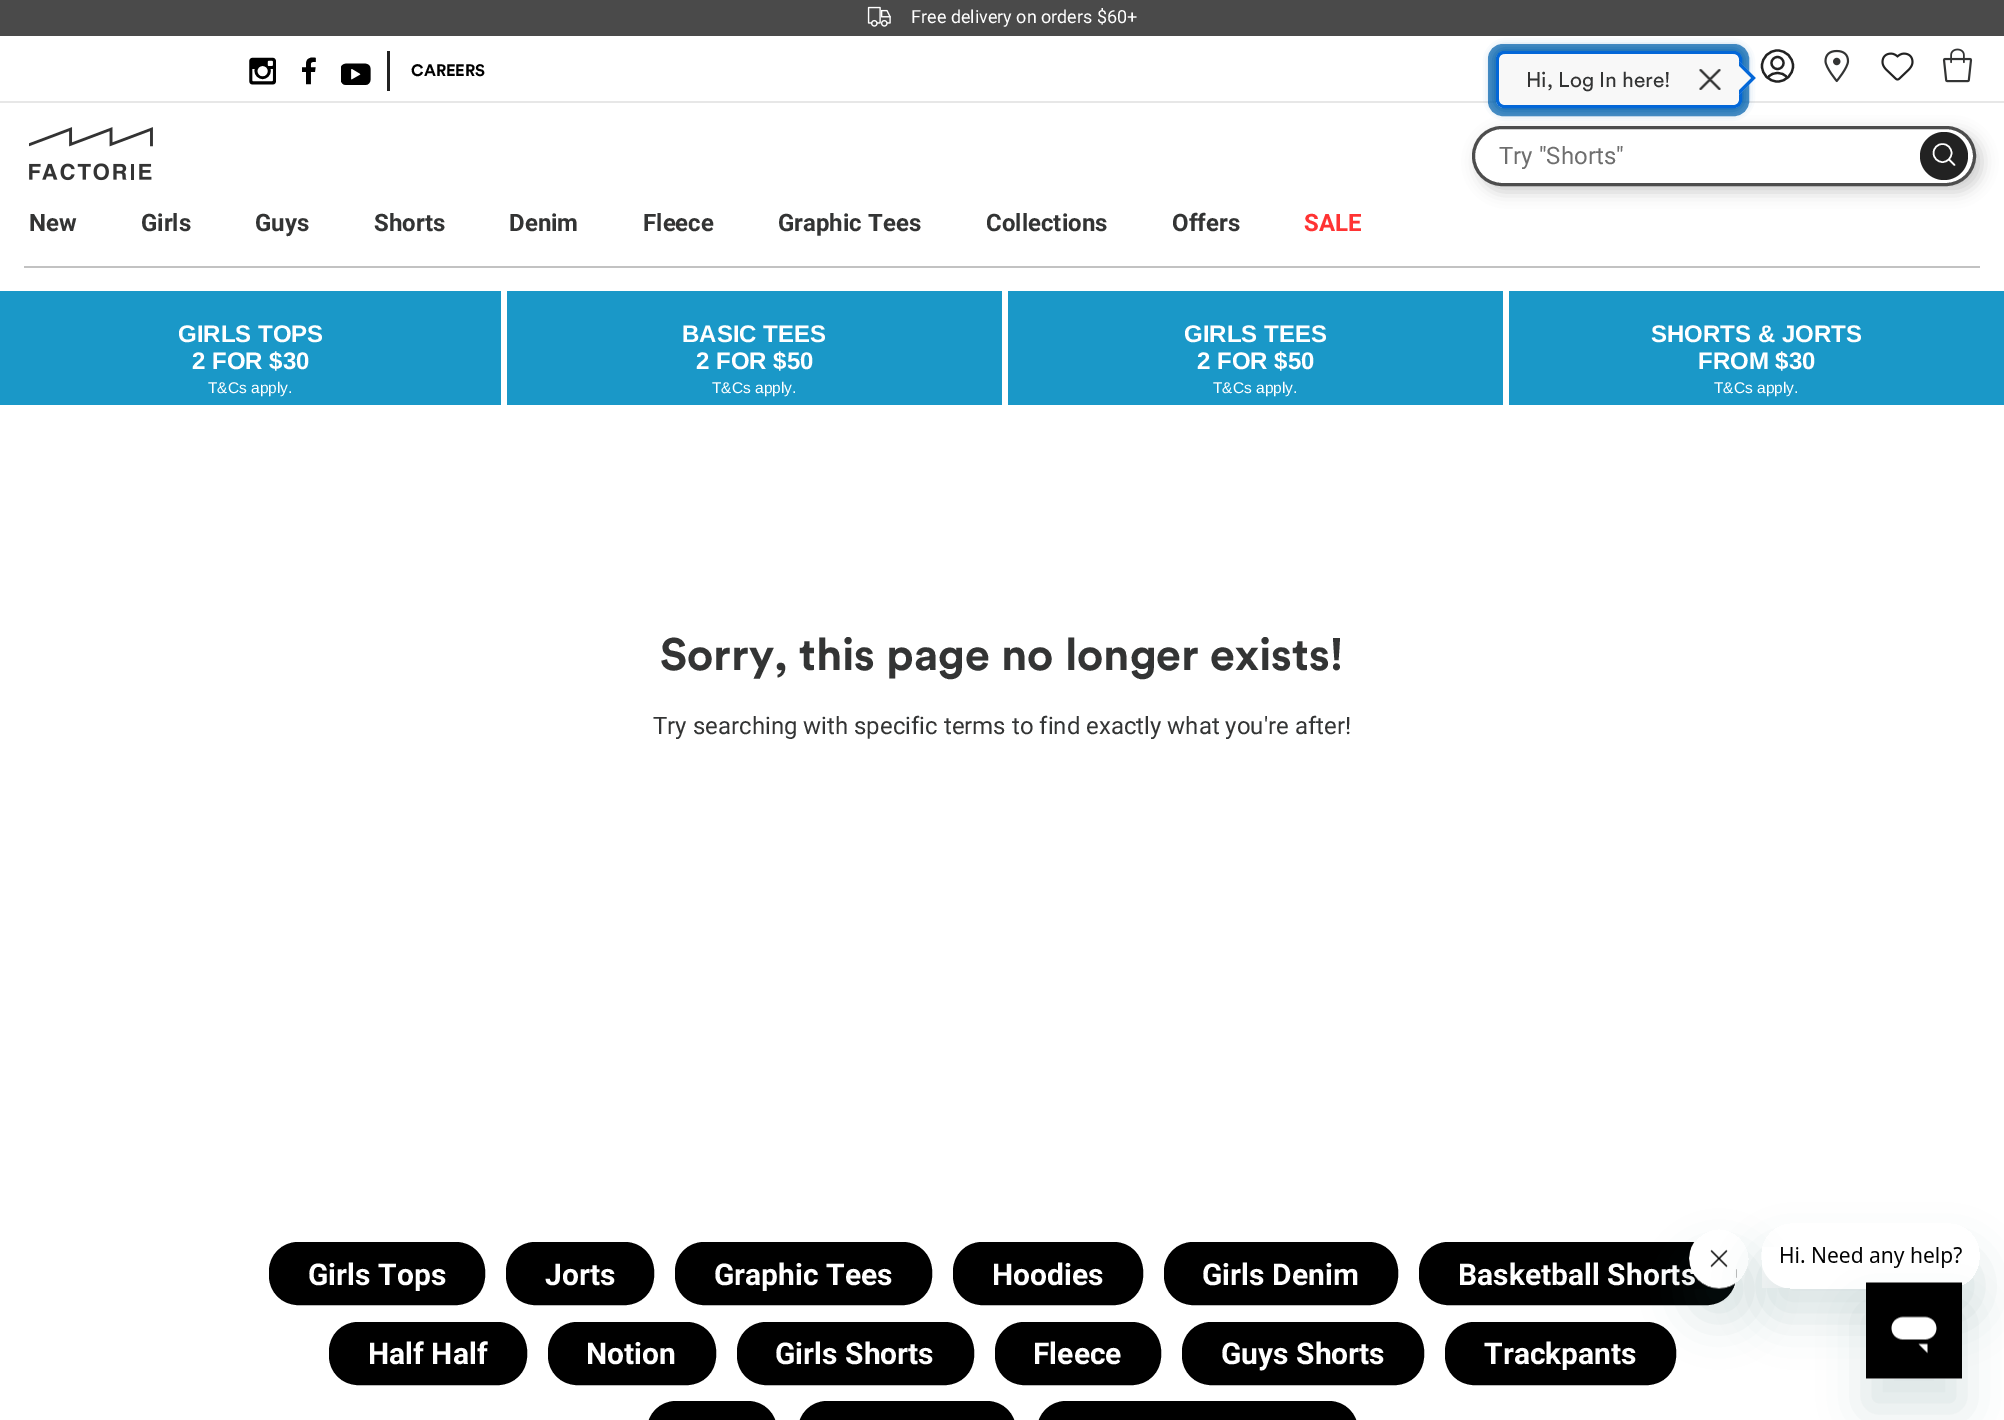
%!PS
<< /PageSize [2004 1420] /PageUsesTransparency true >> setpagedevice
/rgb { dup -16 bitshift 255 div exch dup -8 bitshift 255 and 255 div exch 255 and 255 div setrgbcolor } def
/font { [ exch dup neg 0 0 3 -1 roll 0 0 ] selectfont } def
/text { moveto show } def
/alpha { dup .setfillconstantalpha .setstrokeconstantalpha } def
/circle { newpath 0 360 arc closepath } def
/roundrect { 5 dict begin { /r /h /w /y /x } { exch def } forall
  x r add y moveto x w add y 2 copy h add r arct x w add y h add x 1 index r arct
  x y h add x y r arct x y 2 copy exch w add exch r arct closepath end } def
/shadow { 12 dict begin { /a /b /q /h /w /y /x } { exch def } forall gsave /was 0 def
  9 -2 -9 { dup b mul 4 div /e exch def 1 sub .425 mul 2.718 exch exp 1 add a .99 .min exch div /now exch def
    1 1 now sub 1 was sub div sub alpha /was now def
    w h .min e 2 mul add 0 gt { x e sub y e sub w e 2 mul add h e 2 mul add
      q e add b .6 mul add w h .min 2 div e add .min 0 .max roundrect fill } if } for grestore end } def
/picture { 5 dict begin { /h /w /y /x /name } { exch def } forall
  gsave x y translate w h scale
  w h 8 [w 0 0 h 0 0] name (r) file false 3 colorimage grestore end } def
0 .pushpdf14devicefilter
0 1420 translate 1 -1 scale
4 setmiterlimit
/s1 { /Roboto-Regular 18 font 16#FFFFFF rgb } def
/s2 { /Circular-Bold 16.5 font 16#000000 rgb } def
/s3 { /Circular-Regular 21 font 16#333434 rgb } def
/s4 { /Roboto-Regular 24 font 16#6E6E6E rgb } def
/s5 { /Roboto-Bold 24 font 16#333434 rgb } def
/s6 { /Roboto-Bold 24 font 16#FF3333 rgb } def
/s7 { /LiberationSans-Bold 24 font 16#FFFFFF rgb } def
/s8 { /LiberationSans-Regular 15.5 font 16#FFFFFF rgb } def
/s9 { /Circular-Bold 45 font 16#333434 rgb } def
/s10 { /Roboto-Regular 24 font 16#333434 rgb } def
/s11 { /Roboto-Bold 30 font 16#FFFFFF rgb } def
16#FFFFFF rgb
0 0 2004 1420 rectfill
16#4A4A4A rgb
0 0 2004 36 rectfill
(pic1.raw) 867 6 24 21 picture
s1
(Free delivery on orders $60+) 911 23 text
16#E7E7E7 rgb
0 101 2004 2 rectfill
(pic2.raw) 249 57 27 28 picture
(pic3.raw) 302 57 14 28 picture
(pic4.raw) 341 63 30 22 picture
16#222222 rgb
387 51 3 40 rectfill
s2
(CAREERS) 411 76 text
16#0060AC rgb
1493 48 252 63 11 4.5 0.7 shadow
16#FFFFFF rgb
1496 51 246 57 8 roundrect fill
16#131313 rgb
1478 132 504 60 30 7.5 0.2 shadow
0.7 alpha
16#0060AC rgb
8 setlinewidth
1492 48 253 64 11 roundrect stroke
1 alpha
16#0367D8 rgb
3 setlinewidth
1497.5 52.5 243 54 6.5 roundrect stroke
16#F8F8F8 rgb
1755.5 78 moveto 1738.5 95 lineto 1721.5 78 lineto 1738.5 61 lineto closepath fill
16#0367D8 rgb
1753.5 78 moveto 1738.5 93 lineto 1723.5 78 lineto 1738.5 63 lineto closepath stroke
16#F8F8F8 rgb
1499 54 240 51 8 roundrect fill
s3
(Hi, Log In here!) 1526 87 text
(pic5.raw) 1699 69 22 21 picture
16#222222 rgb
2.2 setlinewidth
1777.5 66 15.5 circle stroke
1777.5 63 6 circle stroke
1 setlinecap
1786.5 77 moveto 1782.5 71.5 1772.5 71.5 1768.5 77 curveto stroke
(pic6.raw) 1824 49 26 34 picture
(pic7.raw) 1881 52 33 29 picture
(pic8.raw) 1942 48 31 35 picture
(pic9.raw) 29 127 124 54 picture
16#FFFFFF rgb
1473.5 127.5 501 57 28.5 roundrect gsave fill grestore
16#4D4D4D rgb
3 setlinewidth
0 setlinecap
stroke
s4
(Try "Shorts") 1499 164 text
16#222222 rgb
1944 156 24 circle fill
16#FFFFFF rgb
1.5 setlinewidth
1 setlinecap
1949 159.5 moveto 1954.5 165 lineto stroke
0 setlinecap
1942.5 153 9 circle stroke
s5
(New) 29 231 text
(Girls) 141 231 text
(Guys) 255 231 text
(Shorts) 374 231 text
(Denim) 509 231 text
(Fleece) 643 231 text
(Graphic Tees) 778 231 text
(Collections) 986 231 text
(Offers) 1172 231 text
s6
(SALE) 1304 231 text
16#C2C2C2 rgb
24 266 1956 2 rectfill
16#1A98C8 rgb
0 291 2004 114 rectfill
s7
(GIRLS TOPS) 178 342 text
(2 FOR $30) 192 369 text
s8
(T&Cs apply.) 208 393 text
501 291 6 114 rectfill
s7
(BASIC TEES) 682 342 text
(2 FOR $50) 696 369 text
s8
(T&Cs apply.) 712 393 text
1002 291 6 114 rectfill
s7
(GIRLS TEES) 1184 342 text
(2 FOR $50) 1197 369 text
s8
(T&Cs apply.) 1213 393 text
1503 291 6 114 rectfill
s7
(SHORTS & JORTS) 1651 342 text
(FROM $30) 1698 369 text
s8
(T&Cs apply.) 1714 393 text
s9
(Sorry, this page no longer exists!) 660 670 text
s10
(Try searching with specific terms to find exactly what you're after!) 653 734 text
16#000000 rgb
270.5 1243.5 213 60 27.5 roundrect gsave fill grestore
3 setlinewidth
stroke
s11
(Girls Tops) 308 1285 text
16#000000 rgb
507.5 1243.5 145 60 27.5 roundrect gsave fill grestore
stroke
s11
(Jorts) 545 1285 text
16#000000 rgb
676.5 1243.5 254 60 27.5 roundrect gsave fill grestore
stroke
s11
(Graphic Tees) 714 1285 text
16#000000 rgb
954.5 1243.5 187 60 27.5 roundrect gsave fill grestore
stroke
s11
(Hoodies) 992 1285 text
16#000000 rgb
1165.5 1243.5 231 60 27.5 roundrect gsave fill grestore
stroke
s11
(Girls Denim) 1202 1285 text
16#000000 rgb
1420.5 1243.5 314 60 27.5 roundrect gsave fill grestore
stroke
s11
(Basketball Shorts) 1458 1285 text
16#000000 rgb
330.5 1323.5 195 60 27.5 roundrect gsave fill grestore
stroke
s11
(Half Half) 368 1364 text
16#000000 rgb
549.5 1323.5 165 60 27.5 roundrect gsave fill grestore
stroke
s11
(Notion) 586 1364 text
16#000000 rgb
738.5 1323.5 234 60 27.5 roundrect gsave fill grestore
stroke
s11
(Girls Shorts) 775 1364 text
16#000000 rgb
996.5 1323.5 163 60 27.5 roundrect gsave fill grestore
stroke
s11
(Fleece) 1033 1364 text
16#000000 rgb
1183.5 1323.5 239 60 27.5 roundrect gsave fill grestore
stroke
s11
(Guys Shorts) 1221 1364 text
16#000000 rgb
1446.5 1323.5 228 60 27.5 roundrect gsave fill grestore
stroke
s11
(Trackpants) 1484 1364 text
16#000000 rgb
648.5 1402.5 127 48 27.5 roundrect gsave fill grestore
stroke
799.5 1402.5 215 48 27.5 roundrect gsave fill grestore
stroke
1038.5 1402.5 318 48 27.5 roundrect gsave fill grestore
stroke
gsave
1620 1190 moveto 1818 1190 lineto 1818 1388 lineto 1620 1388 lineto closepath 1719 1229 moveto 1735.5 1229 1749 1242.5 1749 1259 curveto 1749 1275.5 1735.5 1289 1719 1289 curveto 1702.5 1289 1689 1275.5 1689 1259 curveto 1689 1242.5 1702.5 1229 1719 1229 curveto closepath eoclip newpath
16#17494D rgb
1689 1259 60 60 30 22.5 0.15 shadow
grestore
(pic11.raw) 1689 1242 47 47 picture
gsave
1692 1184 moveto 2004 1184 lineto 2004 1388 lineto 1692 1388 lineto closepath 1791 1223 moveto 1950 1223 lineto 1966.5 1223 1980 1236.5 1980 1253 curveto 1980 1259 lineto 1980 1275.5 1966.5 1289 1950 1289 curveto 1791 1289 lineto 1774.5 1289 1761 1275.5 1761 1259 curveto 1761 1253 lineto 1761 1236.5 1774.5 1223 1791 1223 curveto closepath eoclip newpath
16#17494D rgb
1761 1253 219 66 30 22.5 0.15 shadow
grestore
(pic10.raw) 1762 1247 200 41 picture
16#17494D rgb
1866 1313 96 96 0 22.5 0.15 shadow
(pic12.raw) 1866 1282 96 97 picture
.poppdf14devicefilter showpage
